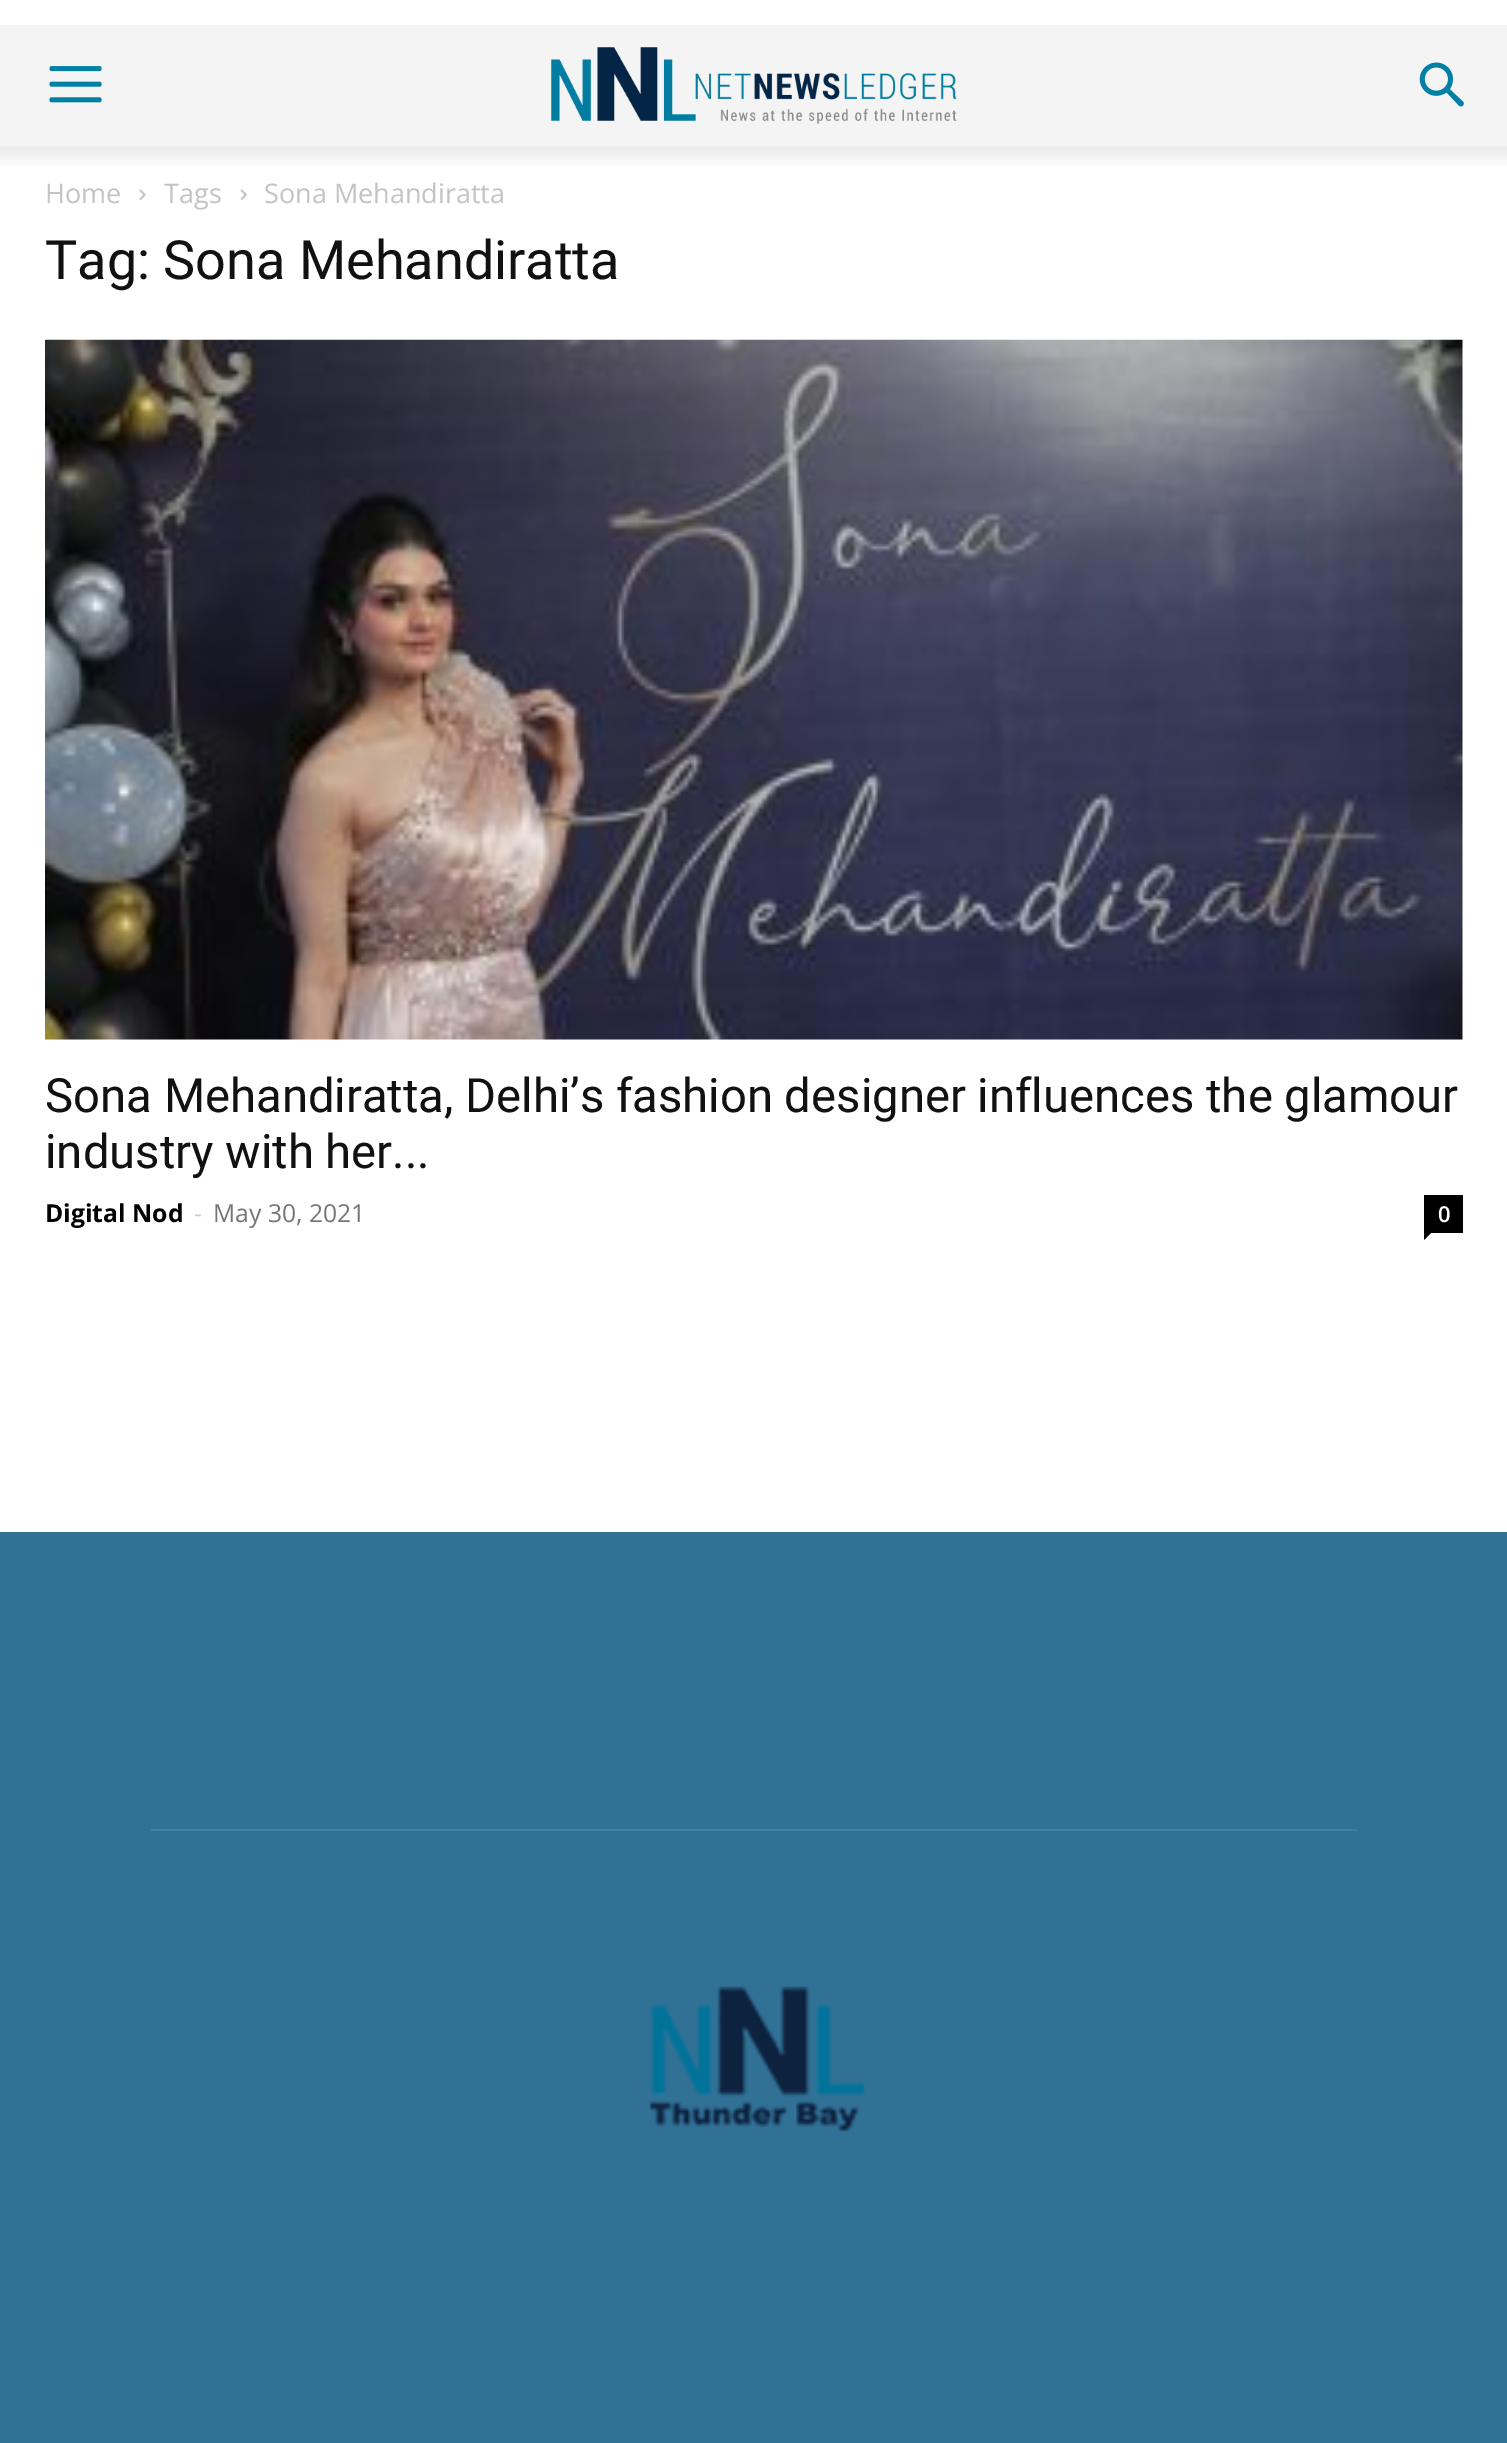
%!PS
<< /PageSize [1507 2443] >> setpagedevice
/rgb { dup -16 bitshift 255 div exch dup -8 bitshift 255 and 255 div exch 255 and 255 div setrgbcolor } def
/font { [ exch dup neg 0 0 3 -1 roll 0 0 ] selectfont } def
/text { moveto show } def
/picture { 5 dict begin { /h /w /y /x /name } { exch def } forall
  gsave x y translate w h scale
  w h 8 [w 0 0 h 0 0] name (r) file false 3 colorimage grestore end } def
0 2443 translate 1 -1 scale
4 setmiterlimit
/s1 { /OpenSans-Regular 27 font 16#C3C3C3 rgb } def
/s2 { /Roboto-Regular 54 font 16#111111 rgb } def
/s3 { /Roboto-Regular 47.25 font 16#111111 rgb } def
/s4 { /OpenSans-Bold 24.75 font 16#000000 rgb } def
/s5 { /OpenSans-Regular 24.75 font 16#CCCCCC rgb } def
/s6 { /OpenSans-Regular 24.75 font 16#767676 rgb } def
/s7 { /OpenSans-SemiBold 22 font 16#FFFFFF rgb } def
16#FFFFFF rgb
0 0 1507 2443 rectfill
16#F4F4F4 rgb
0 25 1507 121 rectfill
(pic1.raw) 49 66 53 37 picture
(pic2.raw) 551 47 406 77 picture
(pic3.raw) 1419 62 45 45 picture
(pic4.raw) 0 146 1507 20 picture
s1
(Home) 45 203 text
(pic5.raw) 139 189 7 11 picture
(Tags) 164 203 text
(pic6.raw) 240 189 7 11 picture
(Sona Mehandiratta) 264 203 text
s2
(Tag: Sona Mehandiratta) 45 279 text
(pic7.raw) 45 339 1418 701 picture
s3
(Sona Mehandiratta, Delhi’s fashion designer influences the glamour) 45 1112 text
(industry with her...) 45 1168 text
s4
(Digital Nod) 45 1222 text
s5
(-) 194 1222 text
s6
(May 30, 2021) 213 1222 text
16#000000 rgb
1424 1195 39 38 rectfill
s7
(0) 1438 1222 text
16#000000 rgb
1424 1233 moveto 1431 1233 lineto 1424 1240 lineto closepath fill
16#317196 rgb
0 1532 1507 911 rectfill
16#467FA1 rgb
151 1829 1206 2 rectfill
(pic8.raw) 649 1986 216 146 picture
showpage
